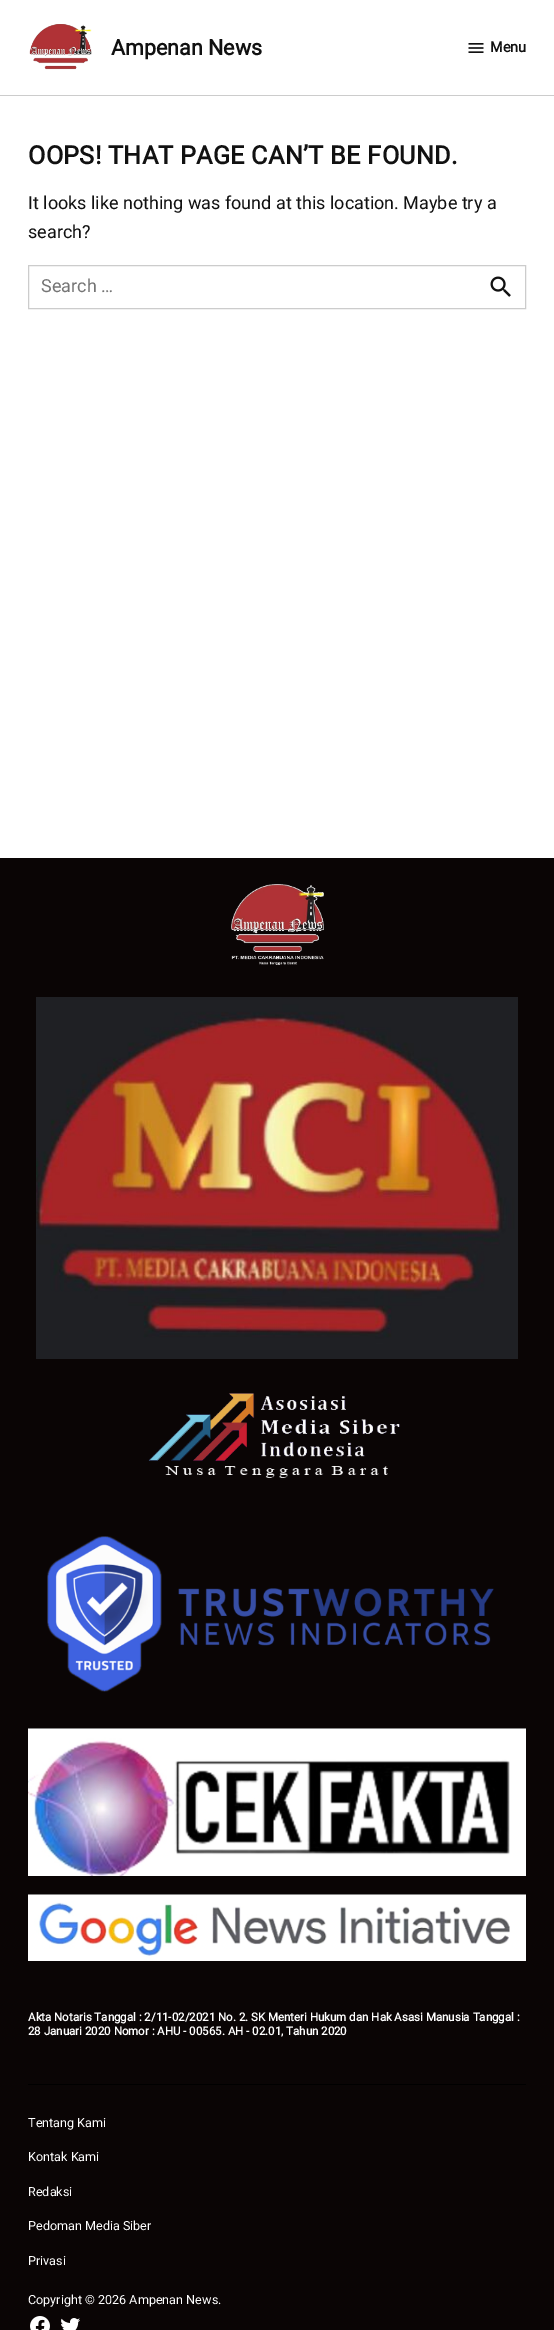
%!PS
<< /PageSize [554 2330] >> setpagedevice
/rgb { dup -16 bitshift 255 div exch dup -8 bitshift 255 and 255 div exch 255 and 255 div setrgbcolor } def
/font { [ exch dup neg 0 0 3 -1 roll 0 0 ] selectfont } def
/text { moveto show } def
/picture { 5 dict begin { /h /w /y /x /name } { exch def } forall
  gsave x y translate w h scale
  w h 8 [w 0 0 h 0 0] name (r) file false 3 colorimage grestore end } def
0 2330 translate 1 -1 scale
4 setmiterlimit
/s1 { /Roboto-Bold 21.5 font 16#111111 rgb } def
/s2 { /Roboto-Bold 14.5 font 16#111111 rgb } def
/s3 { /Roboto-Regular 18 font 16#111111 rgb } def
/s4 { /Roboto-Regular 18 font 16#757575 rgb } def
/s5 { /Roboto-Bold 11.5 font 16#FFFFFF rgb } def
/s6 { /Roboto-Regular 12.6 font 16#FFFFFF rgb } def
16#FFFFFF rgb
0 0 554 2330 rectfill
16#CCCCCC rgb
0 95 554 1 rectfill
(pic1.raw) 29 24 63 46 picture
s1
(Ampenan News) 111 55 text
(pic2.raw) 468 43 16 10 picture
s2
(Menu) 490 52 text
/Roboto-Bold 25.25 font
28 164 moveto 0.25 0 (OOPS! THAT PAGE CAN’T BE FOUND.) ashow
s3
(It looks like nothing was found at this location. Maybe try a) 28 209 text
(search?) 28 238 text
16#CCCCCC rgb
28.5 265.5 497 43 rectstroke
s4
(Search …) 41 292 text
(pic3.raw) 490 276 21 21 picture
16#0A0505 rgb
0 858 554 1472 rectfill
(pic4.raw) 231 884 93 81 picture
(pic5.raw) 36 997 482 362 picture
(pic6.raw) 148 1393 252 85 picture
(pic7.raw) 47 1536 447 156 picture
(pic8.raw) 28 1728 498 148 picture
(pic9.raw) 28 1894 498 67 picture
s5
(Akta Notaris Tanggal : 2/11-02/2021 No. 2. SK Menteri Hukum dan Hak Asasi Manusia Tanggal :) 28 2021 text
(28 Januari 2020 Nomor : AHU - 00565. AH - 02.01, Tahun 2020) 28 2035 text
16#000000 rgb
28 2084 498 1 rectfill
s6
(Tentang Kami) 28 2127 text
(Kontak Kami) 28 2161 text
(Redaksi) 28 2196 text
(Pedoman Media Siber) 28 2230 text
(Privasi) 28 2265 text
(Copyright © 2026 Ampenan News.) 28 2304 text
(pic10.raw) 30 2316 20 14 picture
(pic11.raw) 61 2318 19 12 picture
showpage
